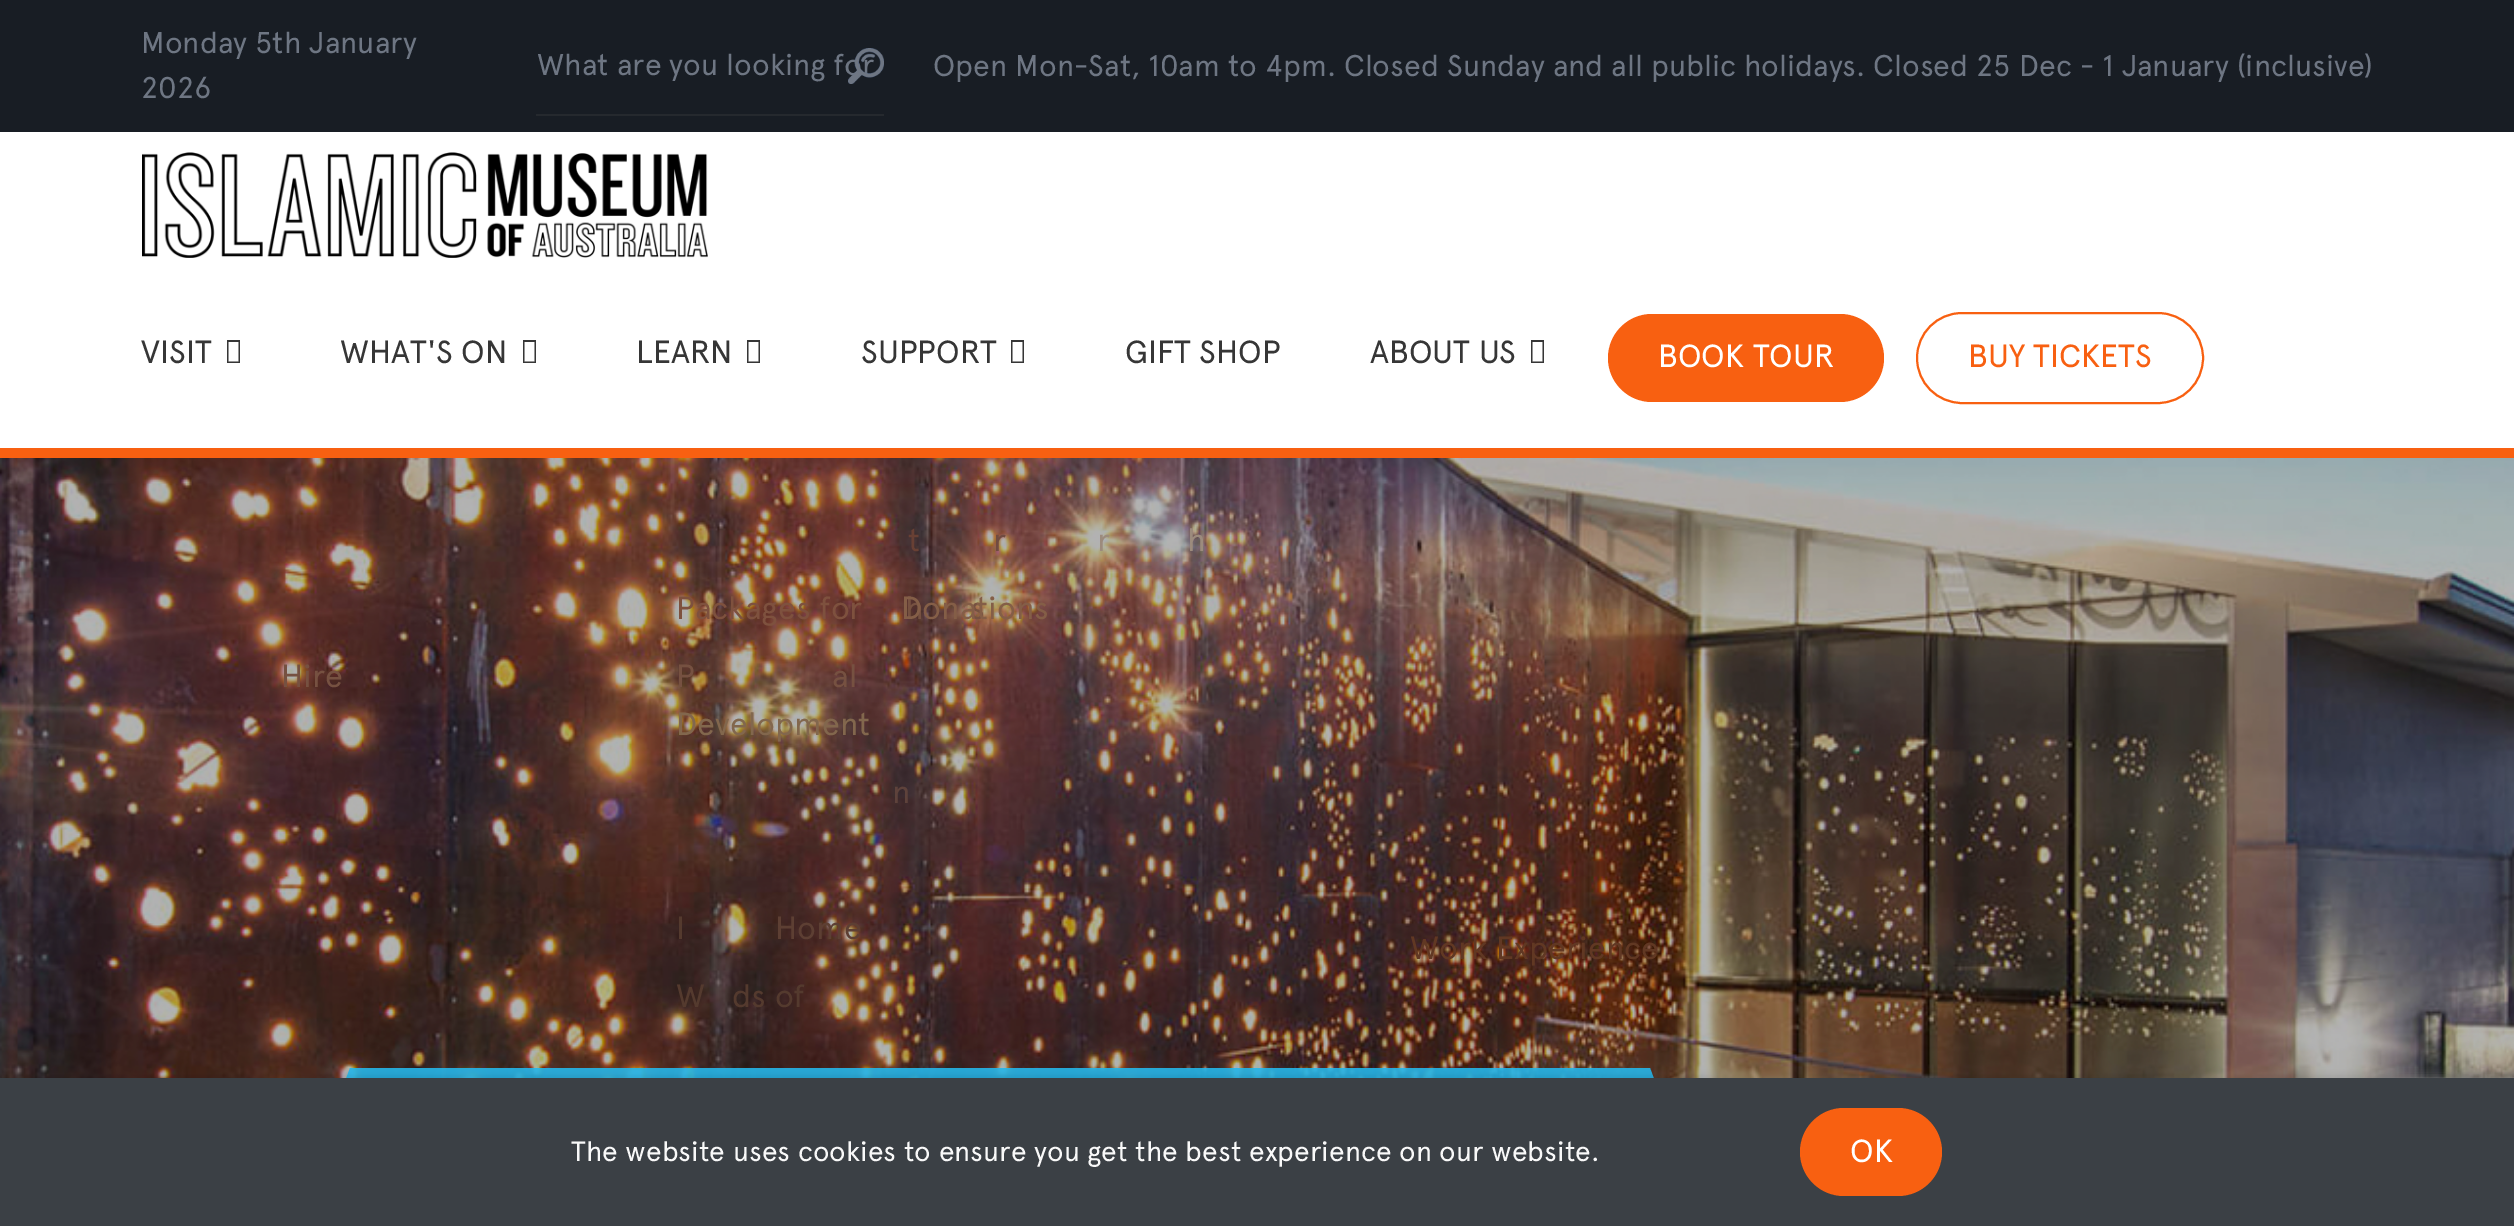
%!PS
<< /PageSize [2514 1226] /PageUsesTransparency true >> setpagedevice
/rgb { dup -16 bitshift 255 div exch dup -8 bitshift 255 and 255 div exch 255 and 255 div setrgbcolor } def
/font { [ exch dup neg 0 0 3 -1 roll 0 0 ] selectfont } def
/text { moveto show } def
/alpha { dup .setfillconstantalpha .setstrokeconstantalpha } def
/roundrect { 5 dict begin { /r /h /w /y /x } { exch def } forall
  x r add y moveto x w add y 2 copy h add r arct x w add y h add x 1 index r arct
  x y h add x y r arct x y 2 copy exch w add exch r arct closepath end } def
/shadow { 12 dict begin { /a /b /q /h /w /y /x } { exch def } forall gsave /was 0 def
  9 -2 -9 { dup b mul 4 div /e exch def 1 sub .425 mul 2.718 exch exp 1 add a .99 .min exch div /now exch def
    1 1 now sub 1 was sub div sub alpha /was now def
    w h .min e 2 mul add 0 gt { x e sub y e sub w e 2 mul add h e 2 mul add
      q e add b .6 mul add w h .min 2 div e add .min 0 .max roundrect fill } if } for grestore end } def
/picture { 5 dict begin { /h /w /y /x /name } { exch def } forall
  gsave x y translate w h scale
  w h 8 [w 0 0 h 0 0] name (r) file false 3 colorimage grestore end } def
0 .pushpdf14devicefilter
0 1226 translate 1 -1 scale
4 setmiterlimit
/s1 { /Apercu-Regular 30 font 16#6E7683 rgb } def
/s2 { /Apercu-Regular 32 font 16#363636 rgb } def
/s3 { /Apercu-Regular 32 font 16#765141 rgb } def
/s4 { /Apercu-Regular 32 font 16#684034 rgb } def
/s5 { /Apercu-Regular 32 font 16#7E513E rgb } def
/s6 { /Apercu-Regular 32 font 16#82674D rgb } def
/s7 { /Apercu-Regular 32 font 16#5E423B rgb } def
/s8 { /Apercu-Regular 32 font 16#543A2E rgb } def
/s9 { /Apercu-Regular 32 font 16#5D3F33 rgb } def
/s10 { /Apercu-Regular 32 font 16#714B41 rgb } def
/s11 { /Apercu-Regular 32 font 16#9C8B7D rgb } def
/s12 { /Apercu-Regular 32 font 16#845E47 rgb } def
/s13 { /Apercu-Regular 32 font 16#613823 rgb } def
/s14 { /Apercu-Regular 32 font 16#FFFFFF rgb } def
/s15 { /Apercu-Regular 32 font 16#F86011 rgb } def
/s16 { /Apercu-Regular 28 font 16#F9F9F9 rgb } def
16#FFFFFF rgb
0 0 2514 1226 rectfill
16#181D24 rgb
0 0 2514 132 rectfill
s1
(Monday 5th January) 141 53 text
(2026) 141 98 text
(What are you looking for) 537 75 text
(pic1.raw) 848 48 36 36 picture
16#25292E rgb
536 114 348 2 rectfill
s1
(Open Mon-Sat, 10am to 4pm. Closed Sunday and all public holidays. Closed 25 Dec - 1 January \(inclusive\)) 933 76 text
16#F86011 rgb
0 448 2514 10 rectfill
(pic2.raw) 142 152 566 106 picture
s2
(VISIT) 141 363 text
227 363 moveto 227 340 lineto 240 340 lineto 240 363 lineto closepath 228.5 361.5 moveto 238.5 361.5 lineto 238.5 342 lineto 228.5 342 lineto closepath fill
(pic3.raw) 0 458 2514 620 picture
s3
(Hire) 281 687 text
s2
(WHAT'S ON) 340 363 text
523 363 moveto 523 340 lineto 536 340 lineto 536 363 lineto closepath 524.5 361.5 moveto 534.5 361.5 lineto 534.5 342 lineto 524.5 342 lineto closepath fill
(LEARN) 636 363 text
747 363 moveto 747 340 lineto 760 340 lineto 760 363 lineto closepath 748.5 361.5 moveto 758.5 361.5 lineto 758.5 342 lineto 748.5 342 lineto closepath fill
s4
(t) 908 551 text
s5
(Packages for) 676 619 text
s3
(h) 905 619 text
(s) 970 619 text
(P) 676 687 text
(al) 832 687 text
s6
(Development) 676 735 text
s7
(n) 892 803 text
s8
(I) 676 939 text
s9
(Home) 775 939 text
s8
(W) 676 1007 text
(ds of) 732 1007 text
s2
(SUPPORT) 861 363 text
1011 363 moveto 1011 340 lineto 1024 340 lineto 1024 363 lineto closepath 1012.5 361.5 moveto 1022.5 361.5 lineto 1022.5 342 lineto 1012.5 342 lineto closepath fill
s10
(r) 993 551 text
s11
(r) 1097 551 text
(h) 1187 551 text
s12
(Donations) 901 619 text
s2
(GIFT SHOP) 1125 363 text
(ABOUT US) 1370 363 text
1531 363 moveto 1531 340 lineto 1544 340 lineto 1544 363 lineto closepath 1532.5 361.5 moveto 1542.5 361.5 lineto 1542.5 342 lineto 1532.5 342 lineto closepath fill
s13
(Work Experience) 1410 959 text
16#F86011 rgb
1608 314 276 88 44 roundrect fill
s14
(BOOK TOUR) 1658 367 text
16#F86011 rgb
2 setlinewidth
1917 313 286 90 45 roundrect stroke
(BUY TICKETS) 1968 367 text
0.9 alpha
16#25B6E9 rgb
1750 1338 moveto 250 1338 lineto 350 1068 lineto 1650 1068 lineto closepath fill
1 alpha
16#000000 rgb
0 1076 2514 148 0 3 0.1 shadow
16#808080 rgb
2374 1078 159 120 4 5 1 shadow
16#3B4045 rgb
0 1078 2514 148 rectfill
s16
(The website uses cookies to ensure you get the best experience on our website.) 571 1161 text
16#F86011 rgb
1800 1108 142 88 44 roundrect fill
s14
(OK) 1850 1162 text
.poppdf14devicefilter showpage
